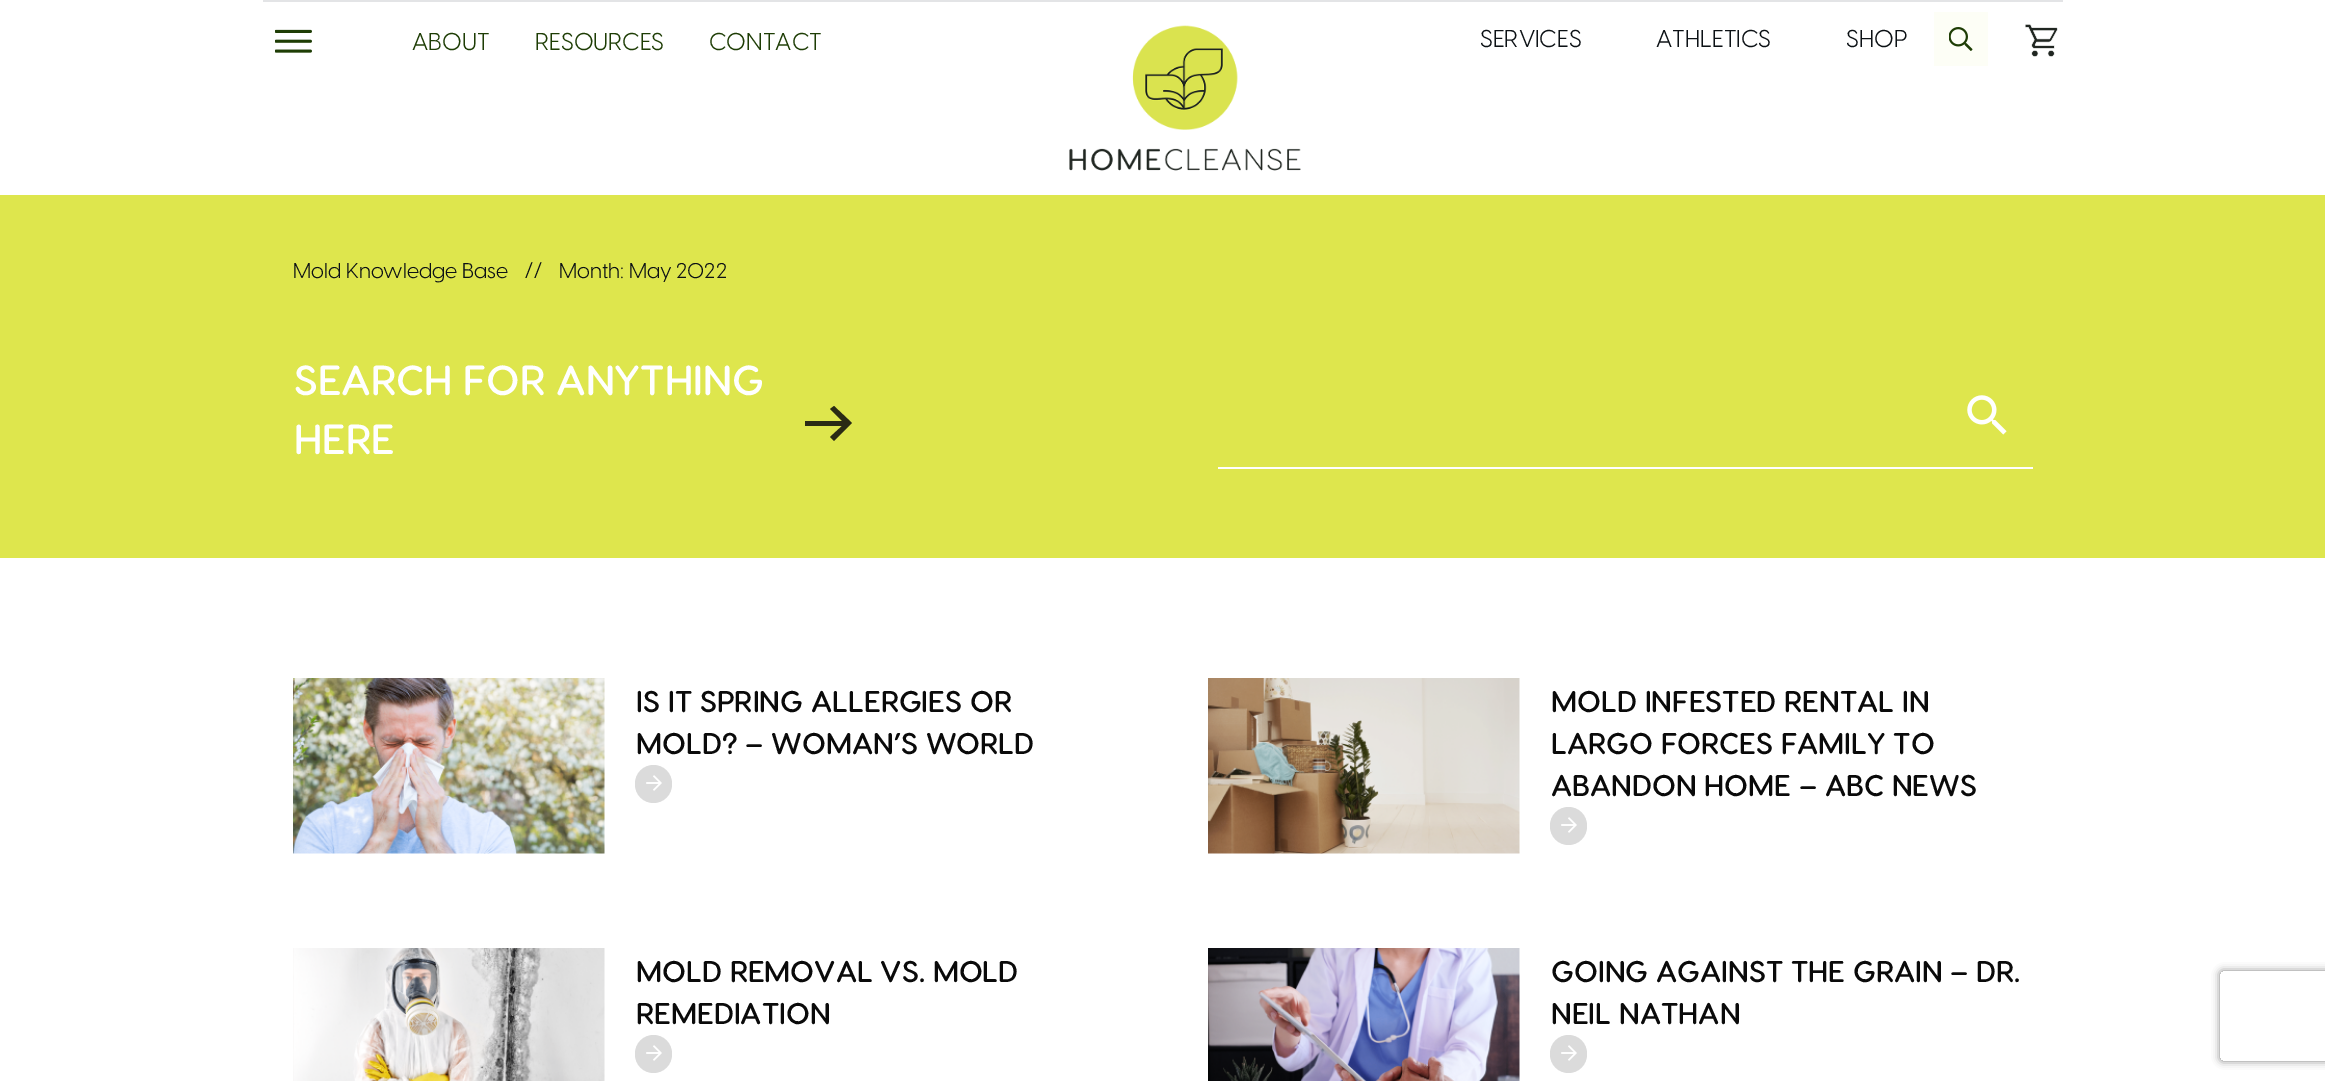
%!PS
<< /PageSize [2325 1081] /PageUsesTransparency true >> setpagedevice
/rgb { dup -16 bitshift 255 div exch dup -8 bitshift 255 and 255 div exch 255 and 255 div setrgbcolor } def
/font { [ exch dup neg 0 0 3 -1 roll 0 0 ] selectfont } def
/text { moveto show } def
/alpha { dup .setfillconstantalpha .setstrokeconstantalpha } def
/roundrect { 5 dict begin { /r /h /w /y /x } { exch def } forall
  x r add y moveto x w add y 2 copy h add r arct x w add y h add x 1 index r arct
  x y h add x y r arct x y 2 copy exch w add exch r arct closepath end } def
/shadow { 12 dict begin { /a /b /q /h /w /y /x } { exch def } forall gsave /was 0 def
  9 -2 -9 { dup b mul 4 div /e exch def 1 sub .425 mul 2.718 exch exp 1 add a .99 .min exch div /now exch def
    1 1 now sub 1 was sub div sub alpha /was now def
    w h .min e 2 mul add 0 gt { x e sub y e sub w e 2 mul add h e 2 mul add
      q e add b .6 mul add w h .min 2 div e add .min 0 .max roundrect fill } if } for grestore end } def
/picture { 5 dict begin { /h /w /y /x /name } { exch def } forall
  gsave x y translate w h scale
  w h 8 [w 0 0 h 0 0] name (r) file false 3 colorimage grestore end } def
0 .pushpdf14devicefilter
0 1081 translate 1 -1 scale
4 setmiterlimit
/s1 { /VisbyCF-Regular 24 font 16#1E3D05 rgb } def
/s2 { /VisbyCF-Regular 24 font 16#0C1115 rgb } def
/s3 { /VisbyCF-Regular 21 font 16#0C1115 rgb } def
/s4 { /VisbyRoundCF-SemiBold 42 font 16#FFFFFF rgb } def
/s5 { /VisbyRoundCF-SemiBold 30 font 16#0A0A0A rgb } def
16#FFFFFF rgb
0 0 2325 1081 rectfill
16#E3E4E6 rgb
263 0 1800 2 rectfill
(pic1.raw) 275 29 37 24 picture
s1
(ABOUT) 412 50 text
(RESOURCES) 535 50 text
(CONTACT) 709 50 text
(pic2.raw) 1069 25 232 146 picture
s2
(SERVICES) 1480 47 text
(ATHLETICS) 1656 47 text
(SHOP) 1846 47 text
16#FDFEF6 rgb
1934 12 54 54 rectfill
(pic3.raw) 1949 27 24 24 picture
(pic4.raw) 2025 24 33 33 picture
16#DEE64D rgb
0 195 2325 363 rectfill
s3
(Mold Knowledge Base) 293 278 text
(//) 524 278 text
(Month: May 2022) 559 278 text
s4
(SEARCH FOR ANYTHING) 294 395 text
(HERE) 294 454 text
16#2A2B14 rgb
805 426 moveto 805 421 lineto 842 421 lineto 830 409 lineto 834 406 lineto 852 423 lineto 834 441 lineto 830 437 lineto 842 426 lineto closepath fill
16#FFFFFF rgb
1218 467 815 2 rectfill
(pic5.raw) 1967 395 40 40 picture
(pic6.raw) 293 678 312 176 picture
s5
(IS IT SPRING ALLERGIES OR) 636 712 text
(MOLD? – WOMAN’S WORLD) 636 754 text
16#DBDBDB rgb
635 765 37 38 18.5 roundrect fill
(pic7.raw) 646 775 16 16 picture
(pic8.raw) 1208 678 312 176 picture
s5
(MOLD INFESTED RENTAL IN) 1551 712 text
(LARGO FORCES FAMILY TO) 1551 754 text
(ABANDON HOME – ABC NEWS) 1551 796 text
16#DBDBDB rgb
1550 807 37 38 18.5 roundrect fill
(pic7.raw) 1561 817 16 16 picture
(pic9.raw) 293 948 312 133 picture
s5
(MOLD REMOVAL VS. MOLD) 636 982 text
(REMEDIATION) 636 1024 text
16#DBDBDB rgb
635 1035 37 38 18.5 roundrect fill
(pic7.raw) 646 1045 16 16 picture
(pic10.raw) 1208 948 312 133 picture
s5
(GOING AGAINST THE GRAIN – DR.) 1551 982 text
(NEIL NATHAN) 1551 1024 text
16#DBDBDB rgb
1550 1035 37 38 18.5 roundrect fill
(pic7.raw) 1561 1045 16 16 picture
gsave
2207 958 moveto 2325 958 lineto 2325 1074 lineto 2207 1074 lineto closepath 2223 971 moveto 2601 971 lineto 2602.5 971 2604 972.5 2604 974 curveto 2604 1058 lineto 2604 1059.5 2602.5 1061 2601 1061 curveto 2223 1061 lineto 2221.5 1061 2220 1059.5 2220 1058 curveto 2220 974 lineto 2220 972.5 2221.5 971 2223 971 curveto closepath eoclip newpath
16#808080 rgb
2220 971 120 90 3 4 1 shadow
grestore
.poppdf14devicefilter showpage
